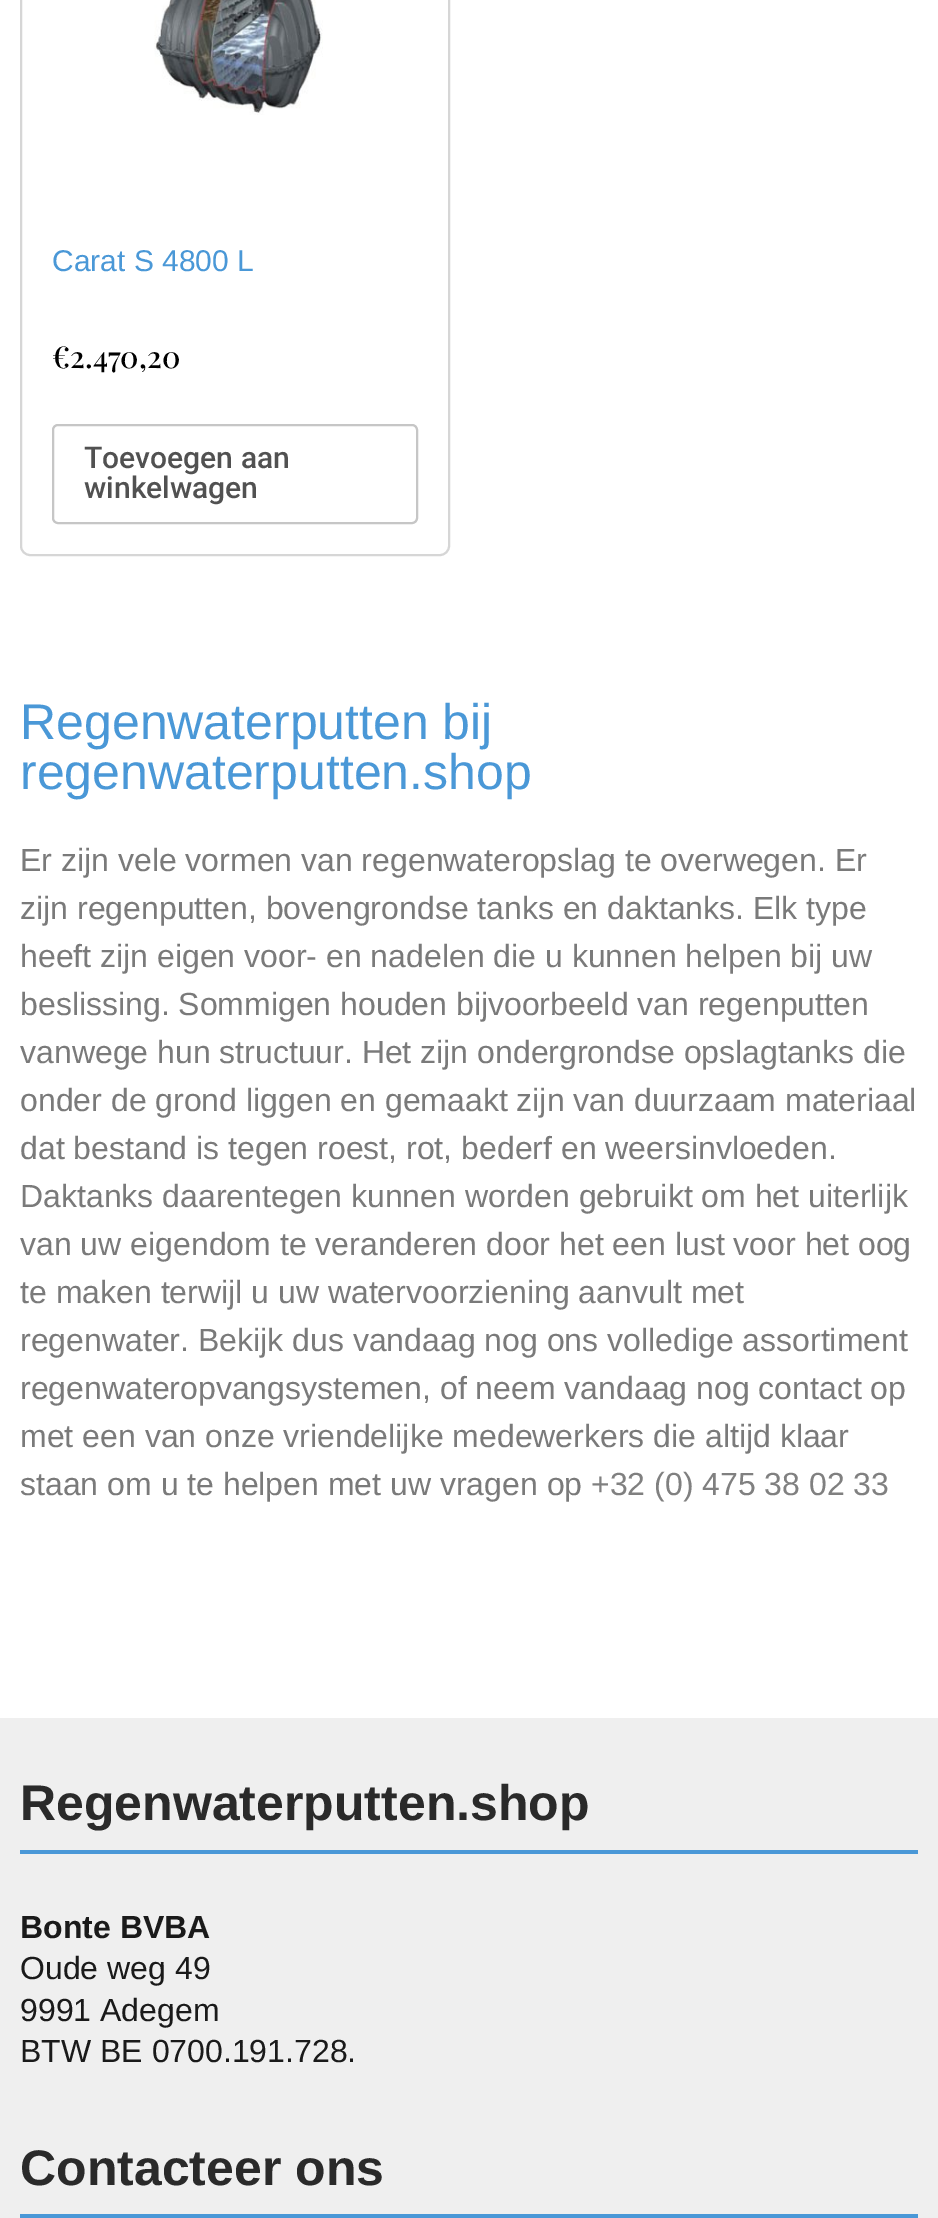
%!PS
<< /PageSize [938 2218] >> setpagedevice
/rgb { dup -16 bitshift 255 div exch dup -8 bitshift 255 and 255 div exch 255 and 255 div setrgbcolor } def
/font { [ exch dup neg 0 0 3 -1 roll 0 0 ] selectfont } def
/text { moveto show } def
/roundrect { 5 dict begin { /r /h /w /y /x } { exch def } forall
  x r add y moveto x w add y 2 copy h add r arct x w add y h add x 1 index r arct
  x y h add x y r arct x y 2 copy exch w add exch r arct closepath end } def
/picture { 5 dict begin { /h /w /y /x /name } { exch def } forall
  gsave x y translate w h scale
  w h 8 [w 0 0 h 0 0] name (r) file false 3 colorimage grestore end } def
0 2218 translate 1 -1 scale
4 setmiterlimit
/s1 { /LiberationSans-Regular 30 font 16#4A98D7 rgb } def
/s2 { /PlayfairDisplay-Medium 30 font 16#000000 rgb } def
/s3 { /Roboto-Medium 30 font 16#515151 rgb } def
/s4 { /LiberationSans-Regular 50 font 16#4A98D7 rgb } def
/s5 { /LiberationSans-Regular 32 font 16#7A7A7A rgb } def
/s6 { /LiberationSans-Regular 32 font 16#808080 rgb } def
/s7 { /LiberationSans-Bold 50 font 16#2A2A2A rgb } def
/s8 { /LiberationSans-Bold 32 font 16#1A1A1A rgb } def
/s9 { /LiberationSans-Regular 32 font 16#1A1A1A rgb } def
16#FFFFFF rgb
0 0 938 2218 rectfill
16#D6D6D6 rgb
2 setlinewidth
21 -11 428 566 9 roundrect stroke
(pic1.raw) 154 0 169 115 picture
s1
(Carat S 4800 L) 52 271 text
s2
(€2.470,20) 52 368 text
16#C6C6C6 rgb
53 425 364 98 5 roundrect stroke
s3
(Toevoegen aan) 84 468 text
(winkelwagen) 84 498 text
s4
(Regenwaterputten bij) 20 739 text
(regenwaterputten.shop) 20 789 text
s5
(Er zijn vele vormen van regenwateropslag te overwegen. Er) 20 871 text
(zijn regenputten, bovengrondse tanks en daktanks. Elk type) 20 919 text
(heeft zijn eigen voor- en nadelen die u kunnen helpen bij uw) 20 967 text
(beslissing. Sommigen houden bijvoorbeeld van regenputten) 20 1015 text
(vanwege hun structuur. Het zijn ondergrondse opslagtanks die) 20 1063 text
(onder de grond liggen en gemaakt zijn van duurzaam materiaal) 20 1111 text
(dat bestand is tegen roest, rot, bederf en weersinvloeden.) 20 1159 text
(Daktanks daarentegen kunnen worden gebruikt om het uiterlijk) 20 1207 text
(van uw eigendom te veranderen door het een lust voor het oog) 20 1255 text
(te maken terwijl u uw watervoorziening aanvult met) 20 1303 text
(regenwater. Bekijk dus vandaag nog ons volledige assortiment) 20 1351 text
(regenwateropvangsystemen, of neem vandaag nog contact op) 20 1399 text
(met een van onze vriendelijke medewerkers die altijd klaar) 20 1447 text
(staan om u te helpen met uw vragen op) 20 1495 text
s6
(+32 \(0\) 475 38 02 33) 591 1495 text
16#EFEFEF rgb
0 1718 938 500 rectfill
s7
(Regenwaterputten.shop) 20 1820 text
16#4A98D7 rgb
20 1850 898 4 rectfill
s8
(Bonte BVBA) 20 1938 text
s9
(Oude weg 49) 20 1979 text
(9991 Adegem) 20 2021 text
(BTW BE 0700.191.728.) 20 2062 text
s7
(Contacteer ons) 20 2185 text
16#4A98D7 rgb
20 2214 898 4 rectfill
showpage
